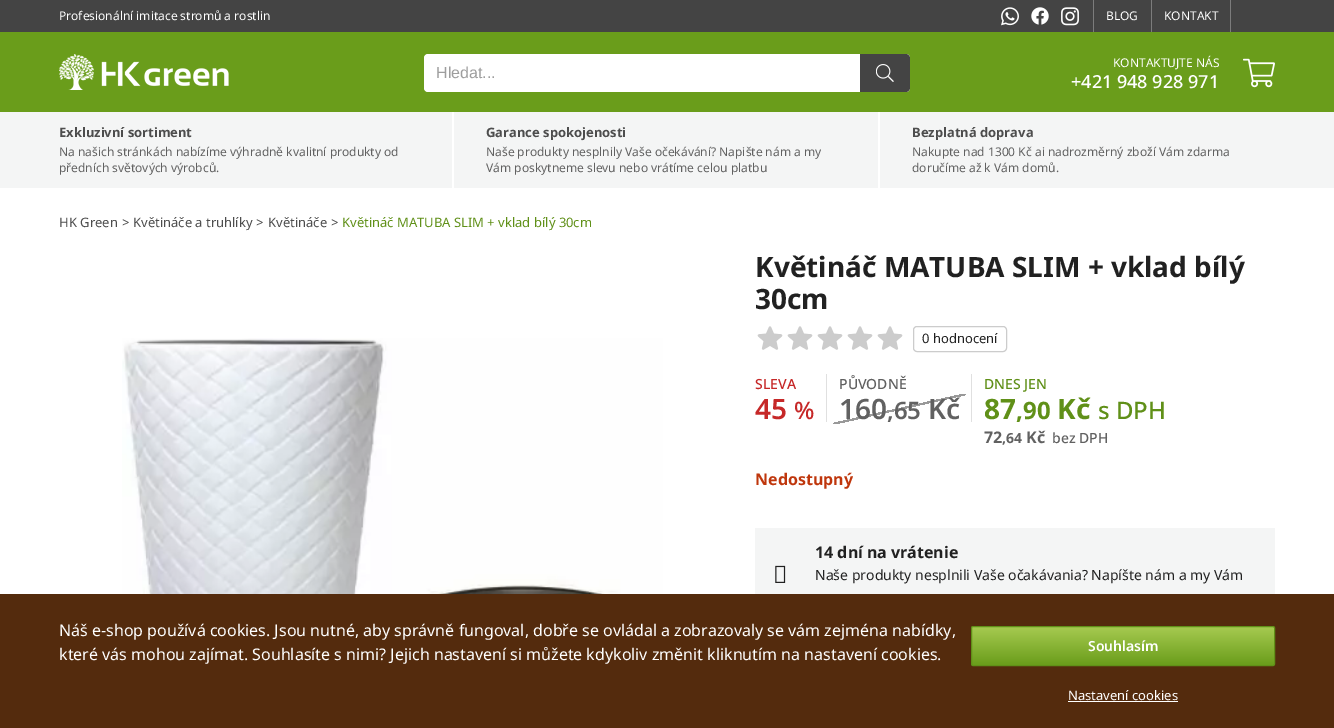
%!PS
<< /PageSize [1334 728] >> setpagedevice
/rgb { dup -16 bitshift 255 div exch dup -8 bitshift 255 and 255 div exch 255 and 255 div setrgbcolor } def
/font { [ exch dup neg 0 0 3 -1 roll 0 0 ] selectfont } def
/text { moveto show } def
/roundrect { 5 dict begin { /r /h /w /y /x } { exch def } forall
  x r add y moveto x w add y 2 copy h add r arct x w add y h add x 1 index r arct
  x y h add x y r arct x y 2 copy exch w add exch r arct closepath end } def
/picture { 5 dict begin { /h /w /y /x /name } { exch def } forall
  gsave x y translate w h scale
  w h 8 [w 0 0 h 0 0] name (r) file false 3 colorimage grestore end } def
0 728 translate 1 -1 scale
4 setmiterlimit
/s1 { /NotoSans-Regular 12 font 16#FFFFFF rgb } def
/s2 { /LiberationSans-Regular 16 font 16#9E9E9E rgb } def
/s3 { /NotoSans-Medium 18 font 16#FFFFFF rgb } def
/s4 { /NotoSans-Bold 13 font 16#4D4D4D rgb } def
/s5 { /NotoSans-Regular 12 font 16#616161 rgb } def
/s6 { /NotoSans-Regular 13 font 16#4D4D4D rgb } def
/s7 { /NotoSans-Regular 13 font 16#609018 rgb } def
/s8 { /NotoSans-Bold 28 font 16#212121 rgb } def
/s9 { /NotoSans-Regular 13 font 16#212121 rgb } def
/s10 { /NotoSans-Medium 14 font 16#C62828 rgb } def
/s11 { /NotoSans-SemiBold 28 font 16#C62828 rgb } def
/s12 { /NotoSans-Medium 24 font 16#C62828 rgb } def
/s13 { /NotoSans-Medium 14 font 16#616161 rgb } def
/s14 { /NotoSans-SemiBold 28 font 16#616161 rgb } def
/s15 { /NotoSans-SemiBold 24 font 16#616161 rgb } def
/s16 { /NotoSans-Medium 14 font 16#609018 rgb } def
/s17 { /NotoSans-Bold 28 font 16#609018 rgb } def
/s18 { /NotoSans-Bold 24 font 16#609018 rgb } def
/s19 { /NotoSans-Medium 24 font 16#609018 rgb } def
/s20 { /NotoSans-Bold 16 font 16#616161 rgb } def
/s21 { /NotoSans-Bold 14 font 16#616161 rgb } def
/s22 { /NotoSans-Bold 16 font 16#BF360C rgb } def
/s23 { /NotoSans-Bold 16 font 16#212121 rgb } def
/s24 { /NotoSans-Regular 14 font 16#212121 rgb } def
/s25 { /NotoSans-Regular 16 font 16#FFFFFF rgb } def
/s26 { /NotoSans-SemiBold 14 font 16#FFFFFF rgb } def
/s27 { /NotoSans-Regular 13 font 16#FFFFFF rgb } def
16#FFFFFF rgb
0 0 1334 728 rectfill
16#444444 rgb
0 0 1334 32 rectfill
s1
(Profesionální imitace stromů a rostlin) 59 20 text
(pic1.raw) 1001 7 18 19 picture
(pic2.raw) 1031 7 18 18 picture
(pic3.raw) 1061 7 18 19 picture
16#7C7C7C rgb
1093 0 1 32 rectfill
s1
(BLOG) 1106 20 text
16#7C7C7C rgb
1151 0 1 32 rectfill
s1
(KONTAKT) 1164 20 text
16#7C7C7C rgb
1230 0 1 32 rectfill
16#6A9D1B rgb
0 32 1334 80 rectfill
(pic4.raw) 59 54 170 36 picture
16#FFFFFF rgb
424 54 486 38 4 roundrect fill
s2
(Hledat...) 436 78 text
16#444444 rgb
860 54 moveto 906 54 lineto 908 54 910 56 910 58 curveto 910 88 lineto 910 90 908 92 906 92 curveto 860 92 lineto closepath fill
(pic5.raw) 876 64 18 18 picture
s1
(KONTAKTUJTE NÁS) 1113 67 text
s3
(+421 948 928 971) 1071 88 text
(pic6.raw) 1243 58 32 30 picture
16#F4F5F5 rgb
0 112 1334 76 rectfill
16#FFFFFF rgb
452 112 2 76 rectfill
s4
(Exkluzivní sortiment) 59 137 text
s5
(Na našich stránkách nabízíme výhradně kvalitní produkty od) 59 156 text
(předních světových výrobců.) 59 172 text
16#FFFFFF rgb
878 112 2 76 rectfill
s4
(Garance spokojenosti) 486 137 text
s5
(Naše produkty nesplnily Vaše očekávání? Napište nám a my) 486 156 text
(Vám poskytneme slevu nebo vrátíme celou platbu) 486 172 text
s4
(Bezplatná doprava) 912 137 text
s5
(Nakupte nad 1300 Kč ai nadrozměrný zboží Vám zdarma) 912 156 text
(doručíme až k Vám domů.) 912 172 text
s6
(HK Green) 59 227 text
(>) 122 227 text
(Květináče a truhlíky) 133 227 text
(>) 256 227 text
(Květináče) 268 227 text
(>) 331 227 text
s7
(Květináč MATUBA SLIM + vklad bílý 30cm) 342 227 text
(pic7.raw) 122 338 541 256 picture
s8
(Květináč MATUBA SLIM + vklad bílý) 755 277 text
(30cm) 755 309 text
(pic8.raw) 757 326 146 24 picture
16#CCCCCC rgb
913.5 326.5 93 25 3.5 roundrect stroke
s9
(0 hodnocení) 922 343 text
s10
(SLEVA) 755 389 text
16#E0E0E0 rgb
826 374 1 48 rectfill
s11
(45) 755 419 text
s12
(%) 794 419 text
s13
(PŮVODNĚ) 839 389 text
16#E0E0E0 rgb
971 374 1 48 rectfill
gsave 833 394 moveto 966 394 lineto 966 424 lineto 833 424 lineto closepath clip newpath
<< /ShadingType 2 /ColorSpace /DeviceRGB /Coords [906 438 893 380] /Extend [true true] /Function << /FunctionType 3 /Domain [0 1] /Functions [<< /FunctionType 2 /Domain [0 1] /C0 [1 1 1] /C1 [1 1 1] /N 1 >> << /FunctionType 2 /Domain [0 1] /C0 [0.6 0.6 0.6] /C1 [0.6 0.6 0.6] /N 1 >> << /FunctionType 2 /Domain [0 1] /C0 [1 1 1] /C1 [1 1 1] /N 1 >>] /Bounds [0.48 0.52] /Encode [0 1 0 1 0 1] >> >> shfill grestore
s14
(160) 839 419 text
s15
(,65) 887 419 text
s14
(Kč) 928 419 text
s16
(DNES JEN) 984 389 text
s17
(87) 984 419 text
s18
(,90) 1016 419 text
s17
(Kč) 1057 419 text
s19
(s DPH) 1098 419 text
s20
(72) 984 443 text
s21
(,64) 1002 443 text
s20
(Kč) 1026 443 text
s13
(bez DPH) 1052 443 text
s22
(Nedostupný) 755 485 text
16#F4F5F5 rgb
755 528 520 66 rectfill
s23
(14 dní na vrátenie) 815 558 text
(pic9.raw) 775 565 11 18 picture
s24
(Naše produkty nesplnili Vaše očakávania? Napíšte nám a my Vám) 815 580 text
16#542B0D rgb
0 594 1334 134 rectfill
s25
(Náš e-shop používá cookies. Jsou nutné, aby správně fungoval, dobře se ovládal a zobrazovaly se vám zejména nabídky,) 59 636 text
(které vás mohou zajímat. Souhlasíte s nimi? Jejich nastavení si můžete kdykoliv změnit kliknutím na nastavení cookies.) 59 660 text
gsave
971 626 304 40 2 roundrect clip newpath
gsave 971 627 moveto 1275 627 lineto 1275 665 lineto 971 665 lineto closepath clip newpath
<< /ShadingType 2 /ColorSpace /DeviceRGB /Coords [1123 665 1123 627] /Extend [true true] /Function << /FunctionType 2 /Domain [0 1] /C0 [0.416 0.616 0.106] /C1 [0.651 0.792 0.314] /N 1 >> >> shfill grestore
grestore
16#609018 rgb
971.5 626.5 303 39 1.5 roundrect stroke
s26
(Souhlasím) 1088 651 text
s27
(Nastavení cookies) 1068 700 text
1068 701 110 1 rectfill
showpage
